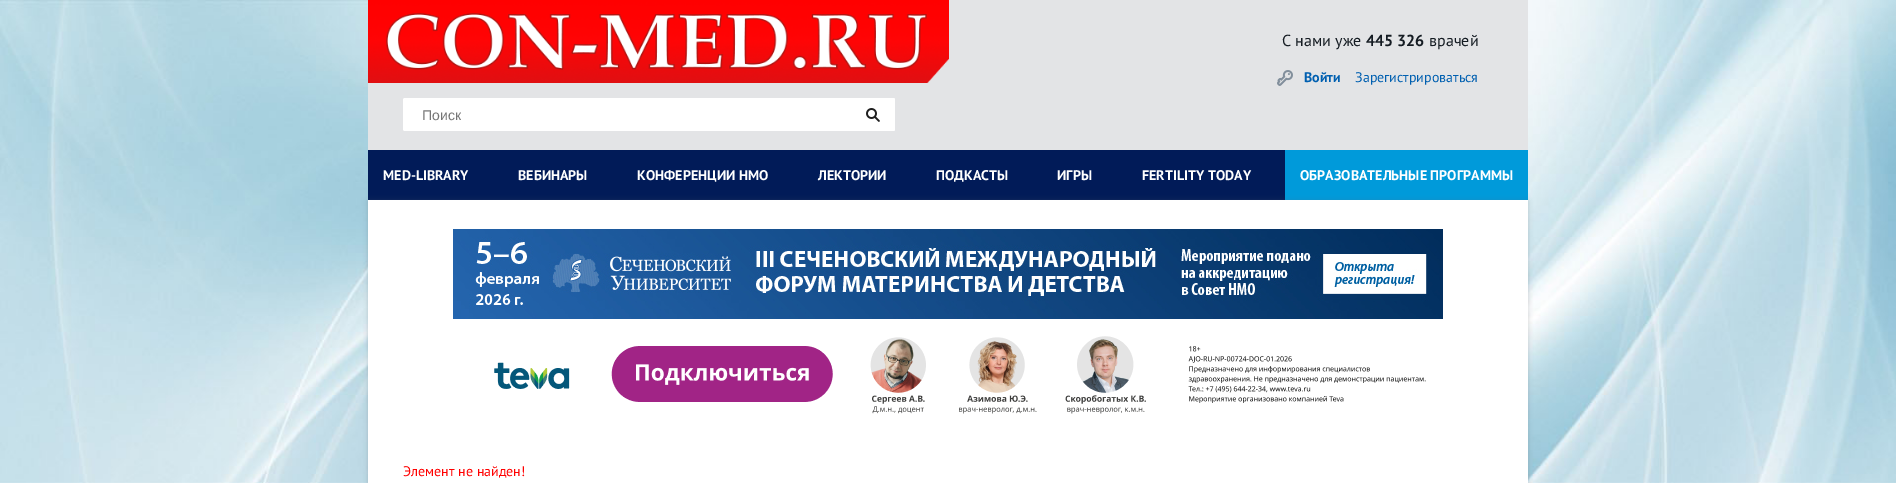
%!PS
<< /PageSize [1896 483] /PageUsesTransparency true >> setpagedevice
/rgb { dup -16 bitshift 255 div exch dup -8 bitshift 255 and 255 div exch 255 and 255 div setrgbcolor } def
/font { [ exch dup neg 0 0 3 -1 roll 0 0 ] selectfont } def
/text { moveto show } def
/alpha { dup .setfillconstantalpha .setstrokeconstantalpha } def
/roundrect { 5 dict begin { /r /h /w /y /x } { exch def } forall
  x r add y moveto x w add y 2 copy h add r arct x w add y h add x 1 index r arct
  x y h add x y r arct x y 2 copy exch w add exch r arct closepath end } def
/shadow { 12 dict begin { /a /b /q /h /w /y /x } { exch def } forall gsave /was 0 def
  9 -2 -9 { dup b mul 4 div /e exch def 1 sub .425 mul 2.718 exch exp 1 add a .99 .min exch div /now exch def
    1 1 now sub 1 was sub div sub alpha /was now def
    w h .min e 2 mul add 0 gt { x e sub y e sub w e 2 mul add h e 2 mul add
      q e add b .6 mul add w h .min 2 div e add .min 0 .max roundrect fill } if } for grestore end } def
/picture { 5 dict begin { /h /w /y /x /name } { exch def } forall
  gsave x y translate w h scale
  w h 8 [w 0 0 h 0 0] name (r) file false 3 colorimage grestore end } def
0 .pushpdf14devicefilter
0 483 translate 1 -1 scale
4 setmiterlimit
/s1 { /PTSans-Regular 16 font 16#141B22 rgb } def
/s2 { /PTSans-Bold 16 font 16#141B22 rgb } def
/s3 { /PTSans-Bold 14 font 16#005FB0 rgb } def
/s4 { /PTSans-Regular 14 font 16#005FB0 rgb } def
/s5 { /LiberationSans-Regular 14 font 16#757575 rgb } def
/s6 { /PTSans-Bold 14 font 16#FFFFFF rgb } def
/s7 { /PTSans-Regular 14 font 16#FF0000 rgb } def
16#FFFFFF rgb
0 0 1896 483 rectfill
(pic1.raw) 0 0 1896 483 picture
16#E3E4E6 rgb
368 0 1160 150 rectfill
s1
(С нами уже) 1282 46 text
s2
(445 326) 1366 46 text
s1
(врачей) 1429 46 text
(pic2.raw) 1277 70 16 16 picture
s3
(Войти) 1304 82 text
s4
(Зарегистрироваться) 1355 82 text
(pic3.raw) 368 0 581 83 picture
16#FFFFFF rgb
403 98 492 33 2 roundrect fill
s5
(Поиск) 422 120 text
16#FFFFFF rgb
851 98 44 33 2 roundrect fill
(pic4.raw) 866 108 14 14 picture
16#011B58 rgb
368 150 917 50 rectfill
s6
(MED-LIBRARY) 383 180 text
(ВЕБИНАРЫ) 518 180 text
(КОНФЕРЕНЦИИ НМО) 637 180 text
(ЛЕКТОРИИ) 818 180 text
(ПОДКАСТЫ) 936 180 text
(ИГРЫ) 1057 180 text
(FERTILITY TODAY) 1142 180 text
16#009ADA rgb
1285 150 243 50 rectfill
s6
(ОБРАЗОВАТЕЛЬНЫЕ ПРОГРАММЫ) 1300 180 text
16#666C73 rgb
368 201 1160 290 0 2.5 0.31 shadow
16#FFFFFF rgb
368 200 1160 283 rectfill
(pic5.raw) 453 229 990 90 picture
(pic6.raw) 494 336 932 78 picture
s7
(Элемент не найден!) 403 476 text
.poppdf14devicefilter showpage
